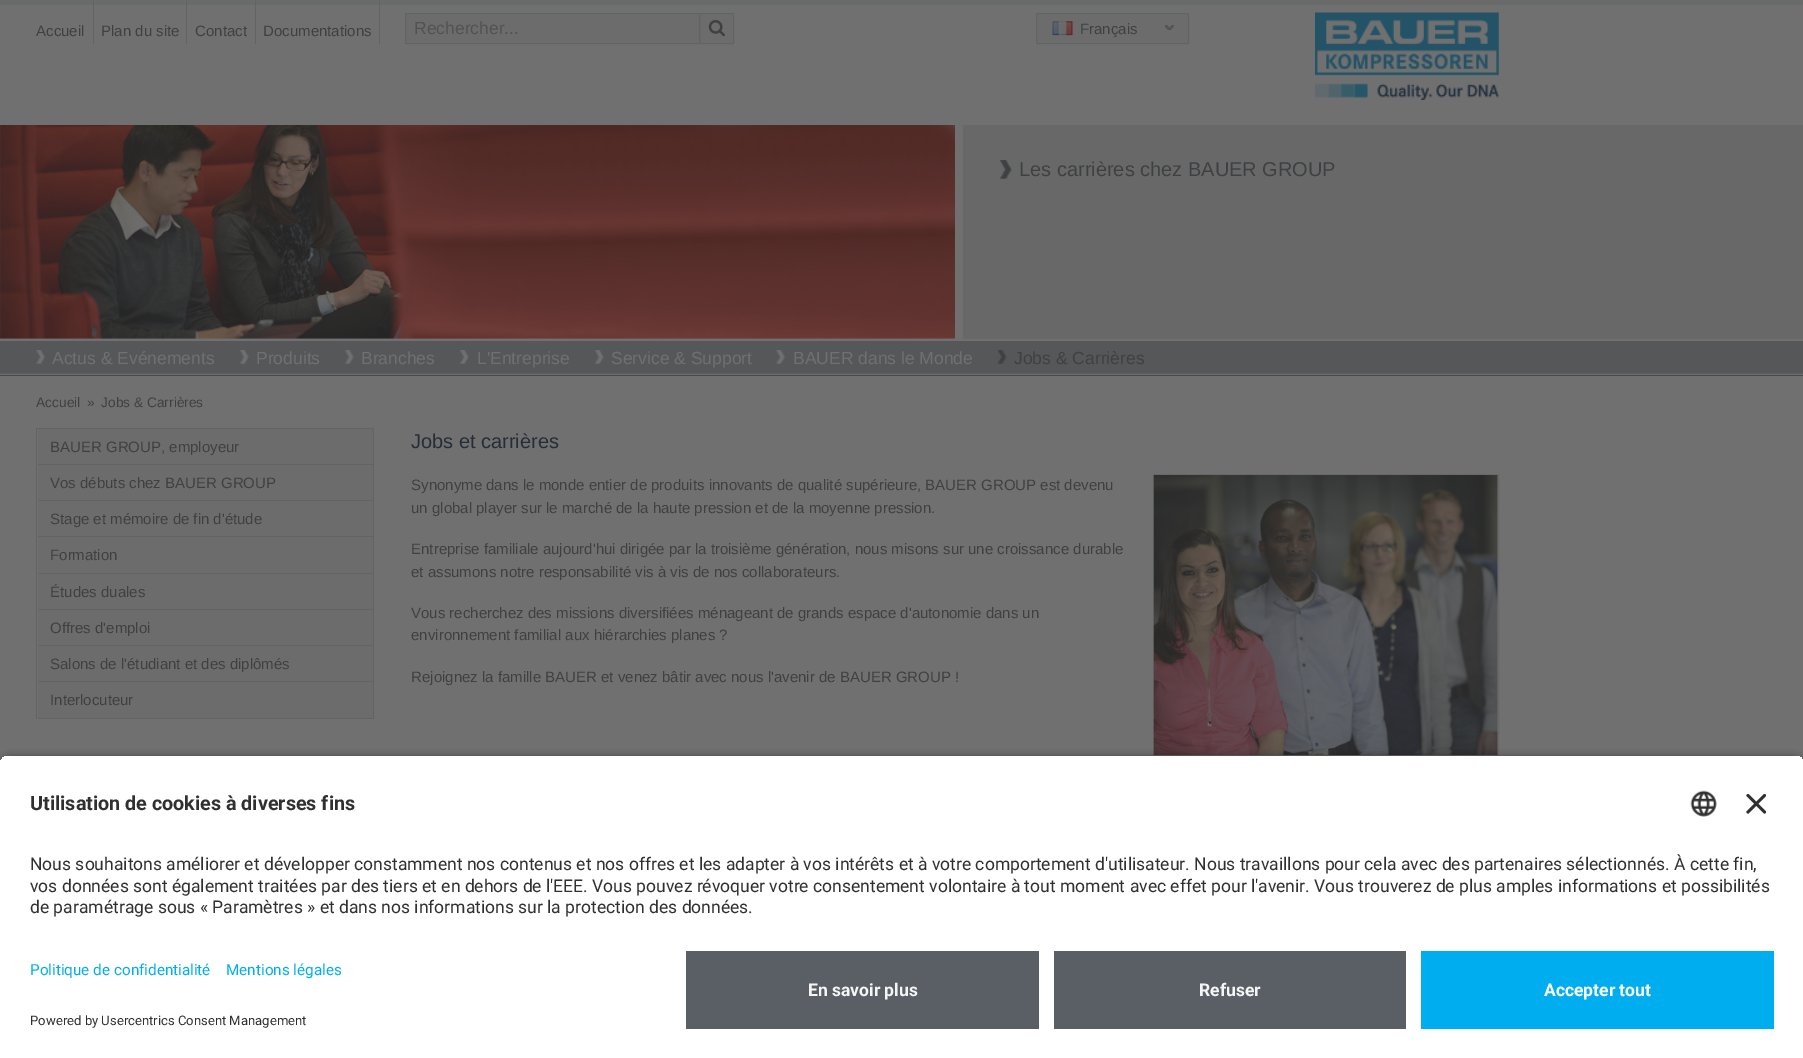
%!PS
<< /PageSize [1803 1058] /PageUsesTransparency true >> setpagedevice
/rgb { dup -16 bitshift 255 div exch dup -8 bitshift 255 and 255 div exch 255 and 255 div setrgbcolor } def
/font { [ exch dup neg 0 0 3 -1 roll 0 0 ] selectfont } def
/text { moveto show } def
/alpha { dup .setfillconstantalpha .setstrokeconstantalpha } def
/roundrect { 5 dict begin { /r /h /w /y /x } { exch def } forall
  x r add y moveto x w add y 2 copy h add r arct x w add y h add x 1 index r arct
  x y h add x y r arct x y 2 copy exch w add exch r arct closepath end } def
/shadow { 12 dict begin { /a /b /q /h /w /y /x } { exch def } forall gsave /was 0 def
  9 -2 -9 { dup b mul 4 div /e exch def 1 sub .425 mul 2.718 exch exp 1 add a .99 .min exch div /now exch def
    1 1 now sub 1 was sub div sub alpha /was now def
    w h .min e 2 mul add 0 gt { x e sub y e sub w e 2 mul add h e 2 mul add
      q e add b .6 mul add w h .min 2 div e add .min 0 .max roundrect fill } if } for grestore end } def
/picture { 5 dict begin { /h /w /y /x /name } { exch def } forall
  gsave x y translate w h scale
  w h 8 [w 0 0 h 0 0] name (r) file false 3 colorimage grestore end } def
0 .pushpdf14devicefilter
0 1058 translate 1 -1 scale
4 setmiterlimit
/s1 { /LiberationSans-Regular 15 font 16#3F4042 rgb } def
/s2 { /LiberationSans-Regular 17.5 font 16#525252 rgb } def
/s3 { /LiberationSans-Regular 20 font 16#3F4042 rgb } def
/s4 { /LiberationSans-Regular 17.5 font 16#707070 rgb } def
/s5 { /LiberationSans-Regular 17.5 font 16#3F4042 rgb } def
/s6 { /LiberationSans-Regular 13.75 font 16#3F4042 rgb } def
/s7 { /LiberationSans-Regular 20 font 16#262D37 rgb } def
/s8 { /Roboto-Bold 19.75 font 16#303030 rgb } def
/s9 { /Roboto-Regular 17.5 font 16#303030 rgb } def
/s10 { /Roboto-Regular 15.25 font 16#00AEEF rgb } def
/s11 { /Roboto-Regular 13.1 font 16#303030 rgb } def
/s12 { /Roboto-Bold 17.5 font 16#F5F5F5 rgb } def
/s13 { /Roboto-Bold 17.5 font 16#FFFFFF rgb } def
16#707070 rgb
0 0 1803 1058 rectfill
16#696A6A rgb
0 0 1803 5 rectfill
16#626363 rgb
93 0 1 44 rectfill
s1
(Accueil) 36 36 text
16#626363 rgb
186 0 1 44 rectfill
s1
(Plan du site) 101 36 text
16#626363 rgb
255 0 1 44 rectfill
s1
(Contact) 195 36 text
16#626363 rgb
379 0 1 44 rectfill
s1
(Documentations) 263 36 text
16#6C6C6C rgb
699.5 13.5 moveto 733 13.5 lineto 733.5 13.5 733.5 13.5 733.5 14 curveto 733.5 43 lineto 733.5 43.5 733.5 43.5 733 43.5 curveto 699.5 43.5 lineto closepath gsave fill grestore
16#626363 rgb
stroke
16#6C6C6C rgb
405.5 13.5 294 30 0.5 roundrect gsave fill grestore
16#626363 rgb
stroke
s2
(Rechercher...) 414 34 text
(pic1.raw) 708 20 17 17 picture
16#6C6C6C rgb
1036.5 13.5 152 30 0.5 roundrect gsave fill grestore
16#626363 rgb
stroke
(pic2.raw) 1165 25 9 5 picture
(pic3.raw) 1052 21 21 15 picture
s1
(Français) 1080 34 text
(pic4.raw) 1315 12 184 88 picture
16#686868 rgb
963 125 840 214 rectfill
(pic5.raw) 0 125 955 214 picture
(pic6.raw) 1000 160 12 19 picture
s3
(Les carrières chez BAUER GROUP) 1019 176 text
16#565759 rgb
0 341 1803 32 rectfill
(pic7.raw) 0 373 1803 3 picture
(pic8.raw) 36 350 9 14 picture
s4
(Actus & Evénements) 52 364 text
(pic9.raw) 240 350 9 14 picture
(Produits) 256 364 text
(pic9.raw) 345 350 9 14 picture
(Branches) 361 364 text
(pic10.raw) 460 350 9 14 picture
(L'Entreprise) 477 364 text
(pic9.raw) 595 350 9 14 picture
(Service & Support) 611 364 text
(pic8.raw) 776 350 9 14 picture
(BAUER dans le Monde) 793 364 text
(pic11.raw) 997 350 10 14 picture
s5
(Jobs & Carrières) 1014 364 text
s6
(Accueil) 36 407 text
(») 87 407 text
(Jobs & Carrières) 101 407 text
16#626363 rgb
36 428 338 1 rectfill
373 428 1 291 rectfill
36 428 1 291 rectfill
16#6C6C6C rgb
38 429 335 35 rectfill
16#626363 rgb
38 464 335 1 rectfill
s1
(BAUER GROUP, employeur) 50 452 text
16#6C6C6C rgb
38 465 335 35 rectfill
16#626363 rgb
38 500 335 1 rectfill
s1
(Vos débuts chez BAUER GROUP) 50 488 text
16#6C6C6C rgb
38 501 335 72 rectfill
16#626363 rgb
38 536 335 1 rectfill
s1
(Stage et mémoire de fin d'étude) 50 524 text
16#626363 rgb
38 573 335 1 rectfill
s1
(Formation) 50 560 text
16#6C6C6C rgb
38 574 335 35 rectfill
16#626363 rgb
38 609 335 1 rectfill
s1
(Études duales) 50 597 text
16#6C6C6C rgb
38 610 335 35 rectfill
16#626363 rgb
38 645 335 1 rectfill
s1
(Offres d'emploi) 50 633 text
16#6C6C6C rgb
38 646 335 72 rectfill
16#626363 rgb
38 681 335 1 rectfill
s1
(Salons de l'étudiant et des diplômés) 50 669 text
16#626363 rgb
38 718 335 1 rectfill
s1
(Interlocuteur) 50 705 text
s7
(Jobs et carrières) 411 448 text
s1
(Synonyme dans le monde entier de produits innovants de qualité supérieure, BAUER GROUP est devenu) 411 490 text
(un global player sur le marché de la haute pression et de la moyenne pression.) 411 513 text
(Entreprise familiale aujourd'hui dirigée par la troisième génération, nous misons sur une croissance durable) 411 554 text
(et assumons notre responsabilité vis à vis de nos collaborateurs.) 411 577 text
(Vous recherchez des missions diversifiées ménageant de grands espace d'autonomie dans un) 411 618 text
(environnement familial aux hiérarchies planes ?) 411 640 text
(Rejoignez la famille BAUER et venez bâtir avec nous l'avenir de BAUER GROUP !) 411 682 text
16#686868 rgb
1153.5 474.5 345 281 rectstroke
(pic12.raw) 1153 475 345 280 picture
16#000000 rgb
0 759 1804 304 10 4.5 0.8 shadow
gsave
10 755 moveto 1794 755 lineto 1799.5 755 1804 759.5 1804 765 curveto 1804 941 lineto 0 941 lineto 0 765 lineto 0 759.5 4.5 755 10 755 curveto closepath clip newpath
16#FFFFFF rgb
0 756 1803 185 rectfill
grestore
s8
(Utilisation de cookies à diverses fins) 30 810 text
(pic13.raw) 1690 790 27 27 picture
(pic14.raw) 1746 794 20 20 picture
s9
(Nous souhaitons améliorer et développer constamment nos contenus et nos offres et les adapter à vos intérêts et à votre comportement d'utilisateur. Nous travaillons pour cela avec des partenaires sélectionnés. À cette fin,) 30 870 text
(vos données sont également traitées par des tiers et en dehors de l'EEE. Vous pouvez révoquer votre consentement volontaire à tout moment avec effet pour l'avenir. Vous trouverez de plus amples informations et possibilités) 30 892 text
(de paramétrage sous « Paramètres » et dans nos informations sur la protection des données.) 30 913 text
16#FFFFFF rgb
0 941 1803 117 rectfill
s10
(Politique de confidentialité) 30 975 text
(Mentions légales) 226 975 text
s11
(Powered by Usercentrics Consent Management) 30 1025 text
16#5A5E65 rgb
686 951 353 78 rectfill
s12
(En savoir plus) 808 996 text
16#5A5E65 rgb
1054 951 352 78 rectfill
s12
(Refuser) 1199 996 text
16#00AEEF rgb
1421 951 353 78 rectfill
s13
(Accepter tout) 1544 996 text
.poppdf14devicefilter showpage
